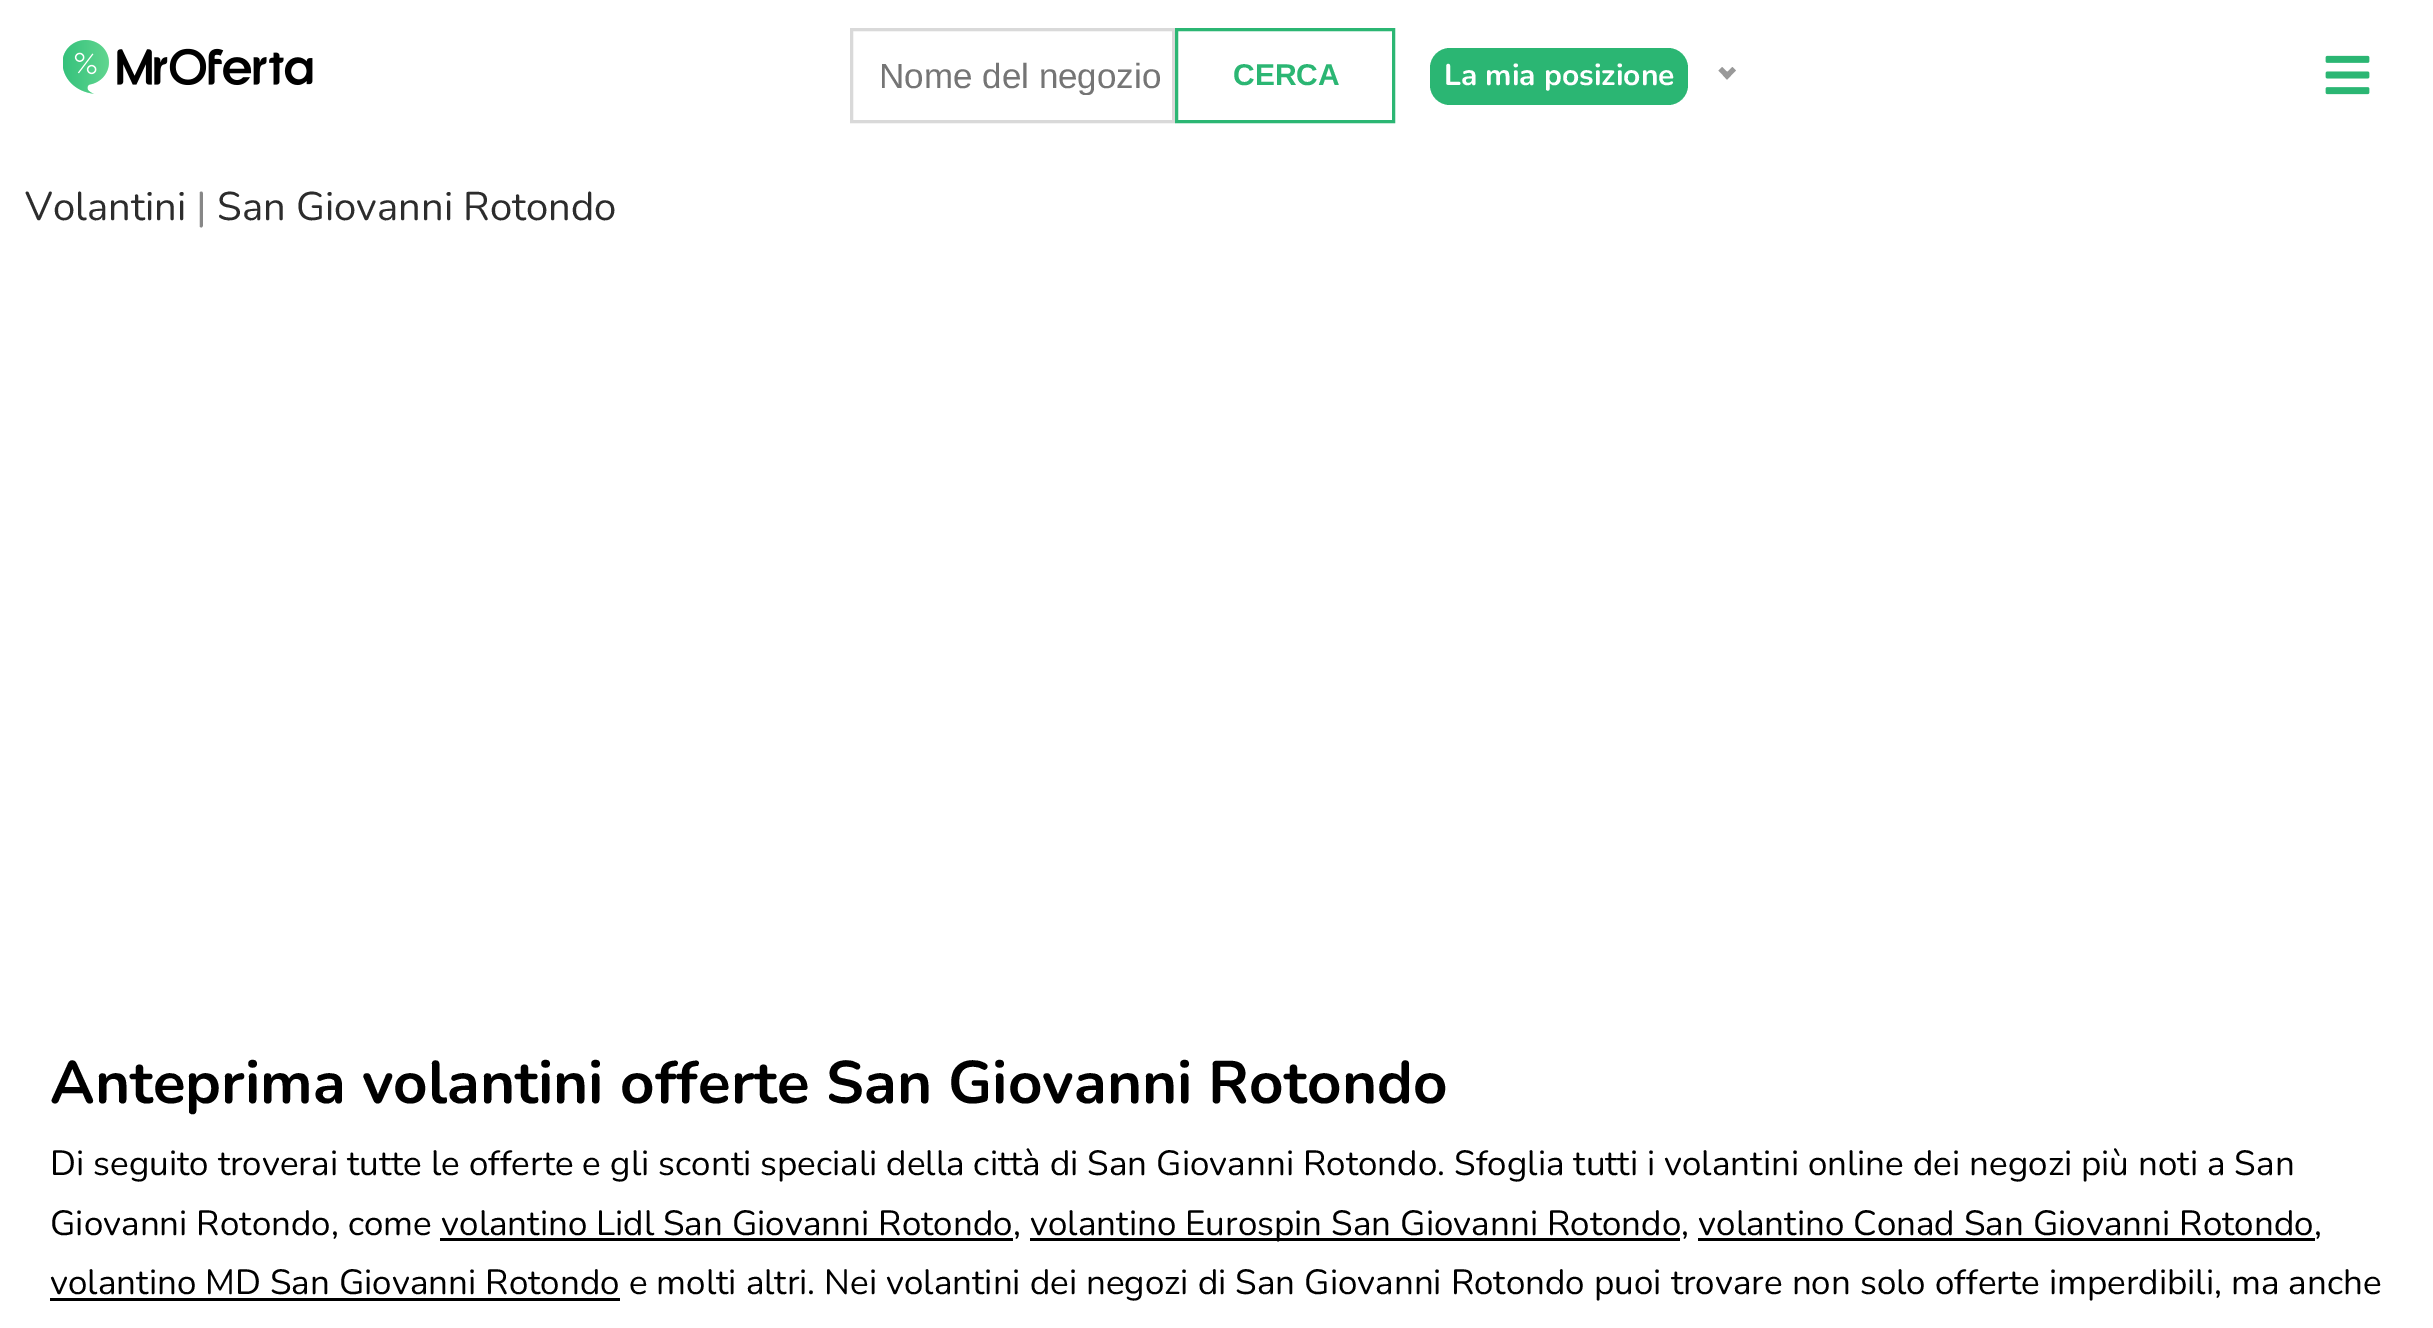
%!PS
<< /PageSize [2433 1328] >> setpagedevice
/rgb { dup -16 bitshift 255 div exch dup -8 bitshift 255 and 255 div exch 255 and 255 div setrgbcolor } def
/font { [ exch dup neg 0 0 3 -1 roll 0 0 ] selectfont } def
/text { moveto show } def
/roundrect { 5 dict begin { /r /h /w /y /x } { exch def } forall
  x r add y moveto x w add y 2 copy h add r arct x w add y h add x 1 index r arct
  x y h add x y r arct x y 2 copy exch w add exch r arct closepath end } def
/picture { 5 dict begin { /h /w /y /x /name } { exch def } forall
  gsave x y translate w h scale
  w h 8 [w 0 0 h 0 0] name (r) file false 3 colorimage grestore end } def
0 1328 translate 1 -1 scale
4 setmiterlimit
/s1 { /LiberationSans-Regular 35 font 16#757575 rgb } def
/s2 { /LiberationSans-Bold 30 font 16#2BB673 rgb } def
/s3 { /Nunito-Bold 30 font 16#FFFFFF rgb } def
/s4 { /Nunito-Regular 40 font 16#2C2C2C rgb } def
/s5 { /Nunito-Regular 40 font 16#878787 rgb } def
/s6 { /Nunito-Bold 60 font 16#000000 rgb } def
/s7 { /Nunito-Regular 35 font 16#000000 rgb } def
16#FFFFFF rgb
0 0 2433 1328 rectfill
(pic1.raw) 63 40 250 54 picture
16#D9D9D9 rgb
3 setlinewidth
851.5 29.5 322 92 rectstroke
gsave
878 55 290 40 rectclip
s1
(Nome del negozio) 879 88 text
grestore
16#2BB673 rgb
1176.5 29.5 217 92 rectstroke
s2
(CERCA) 1233 85 text
1430 48 258 57 20 roundrect fill
s3
(La mia posizione) 1444 85 text
16#999999 rgb
1732.5 67 moveto 1736 70.5 lineto 1727 79.5 lineto 1723.5 75.5 lineto closepath fill
1722 67 moveto 1731 75.5 lineto 1727 79.5 lineto 1718.5 70.5 lineto closepath fill
(pic2.raw) 2325 55 45 40 picture
s4
(Volantini) 25 220 text
s5
(|) 196 220 text
s4
(San Giovanni Rotondo) 217 220 text
s6
(Anteprima volantini offerte San Giovanni Rotondo) 50 1103 text
s7
(Di seguito troverai tutte le offerte e gli sconti speciali della città di San Giovanni Rotondo. Sfoglia tutti i volantini online dei negozi più noti a San) 50 1175 text
(Giovanni Rotondo, come volantino Lidl San Giovanni Rotondo,) 50 1235 text
1030 1238 650 3 rectfill
(volantino Eurospin San Giovanni Rotondo, volantino Conad San Giovanni Rotondo,) 1030 1235 text
440 1238 573 3 rectfill
1698 1238 617 3 rectfill
50 1298 570 3 rectfill
(volantino MD San Giovanni Rotondo e molti altri. Nei volantini dei negozi di San Giovanni Rotondo puoi trovare non solo offerte imperdibili, ma anche) 50 1294 text
showpage
